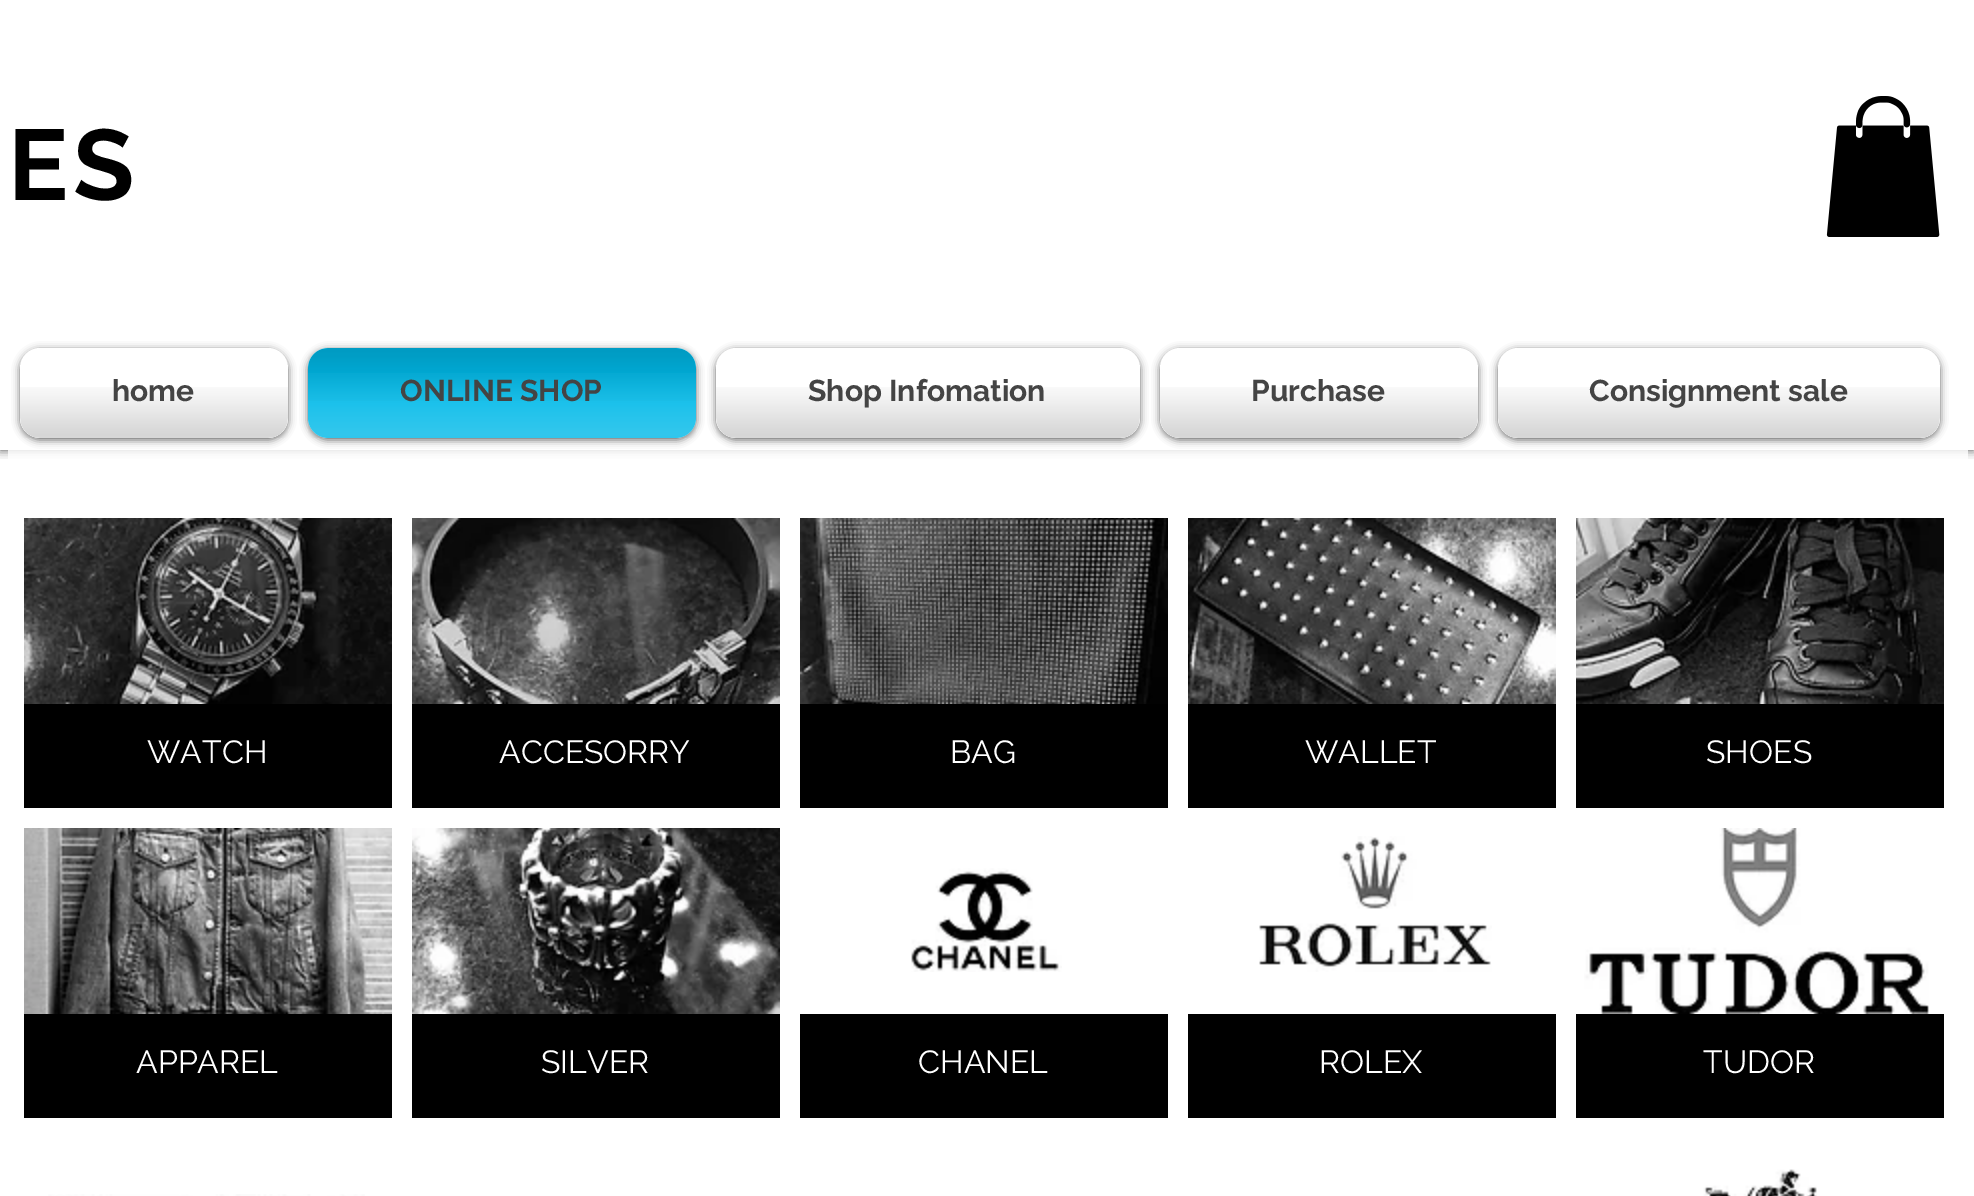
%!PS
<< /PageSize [1974 1196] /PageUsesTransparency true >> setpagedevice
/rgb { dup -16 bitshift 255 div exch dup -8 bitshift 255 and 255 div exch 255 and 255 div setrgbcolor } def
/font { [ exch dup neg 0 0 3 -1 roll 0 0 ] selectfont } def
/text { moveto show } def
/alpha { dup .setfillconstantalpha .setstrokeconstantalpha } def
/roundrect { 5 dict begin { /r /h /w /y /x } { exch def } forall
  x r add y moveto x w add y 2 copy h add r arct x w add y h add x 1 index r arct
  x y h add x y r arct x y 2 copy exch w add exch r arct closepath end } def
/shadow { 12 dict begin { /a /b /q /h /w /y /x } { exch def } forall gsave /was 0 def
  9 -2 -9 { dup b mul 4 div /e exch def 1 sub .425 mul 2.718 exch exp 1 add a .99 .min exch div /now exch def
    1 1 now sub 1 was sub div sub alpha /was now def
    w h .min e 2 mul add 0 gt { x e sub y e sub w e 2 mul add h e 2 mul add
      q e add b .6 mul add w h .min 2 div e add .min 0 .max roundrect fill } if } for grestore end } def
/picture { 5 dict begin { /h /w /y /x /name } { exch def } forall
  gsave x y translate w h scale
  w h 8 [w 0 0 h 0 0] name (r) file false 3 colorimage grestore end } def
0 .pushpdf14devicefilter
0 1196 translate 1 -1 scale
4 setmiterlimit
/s1 { /Raleway-Bold 30 font 16#444444 rgb } def
/s2 { /Raleway-Regular 32 font 16#FFFFFF rgb } def
16#FFFFFF rgb
0 0 1974 1196 rectfill
gsave
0 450 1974 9 rectclip
16#000000 rgb
0 0 1974 450 0 5 0.7 shadow
grestore
/Raleway-Bold 100 font
16#000000 rgb
8 200 moveto 5 0 (ES) ashow
(pic1.raw) 1826 96 114 141 picture
20 350 268 90 20 4 0.6 shadow
16#FFFFFF rgb
20 348 268 90 20 roundrect fill
(pic2.raw) 20 387 268 51 picture
s1
(home) 112 401 text
16#000000 rgb
308 350 388 90 20 4 0.6 shadow
16#00B9E8 rgb
308 348 388 90 20 roundrect fill
(pic3.raw) 308 348 388 51 picture
(pic4.raw) 308 373 388 65 picture
s1
(ONLINE SHOP) 400 401 text
16#000000 rgb
716 350 424 90 20 4 0.6 shadow
16#FFFFFF rgb
716 348 424 90 20 roundrect fill
(pic5.raw) 716 387 424 51 picture
s1
(Shop Infomation) 808 401 text
16#000000 rgb
1160 350 318 90 20 4 0.6 shadow
16#FFFFFF rgb
1160 348 318 90 20 roundrect fill
(pic6.raw) 1160 387 318 51 picture
s1
(Purchase) 1251 401 text
16#000000 rgb
1498 350 442 90 20 4 0.6 shadow
16#FFFFFF rgb
1498 348 442 90 20 roundrect fill
(pic7.raw) 1498 387 442 51 picture
s1
(Consignment sale) 1589 401 text
0.8 alpha
16#FFFFFF rgb
8 450 1960 10 rectfill
1 alpha
(pic8.raw) 24 518 368 186 picture
16#000000 rgb
24 704 368 104 rectfill
s2
(WATCH) 147 763 text
(pic9.raw) 412 518 368 186 picture
16#000000 rgb
412 704 368 104 rectfill
s2
(ACCESORRY) 499 763 text
(pic10.raw) 800 518 368 186 picture
16#000000 rgb
800 704 368 104 rectfill
s2
(BAG) 950 763 text
(pic11.raw) 1188 518 368 186 picture
16#000000 rgb
1188 704 368 104 rectfill
s2
(WALLET) 1305 763 text
(pic12.raw) 1576 518 368 186 picture
16#000000 rgb
1576 704 368 104 rectfill
s2
(SHOES) 1706 763 text
(pic13.raw) 24 828 368 186 picture
16#000000 rgb
24 1014 368 104 rectfill
s2
(APPAREL) 136 1073 text
(pic14.raw) 412 828 368 186 picture
16#000000 rgb
412 1014 368 104 rectfill
s2
(SILVER) 541 1073 text
(pic15.raw) 911 868 151 104 picture
16#000000 rgb
800 1014 368 104 rectfill
s2
(CHANEL) 918 1073 text
(pic16.raw) 1259 836 233 136 picture
16#000000 rgb
1188 1014 368 104 rectfill
s2
(ROLEX) 1319 1073 text
(pic17.raw) 1584 828 345 186 picture
16#000000 rgb
1576 1014 368 104 rectfill
s2
(TUDOR) 1703 1073 text
(pic18.raw) 48 1194 317 2 picture
(pic19.raw) 1703 1169 114 27 picture
.poppdf14devicefilter showpage
